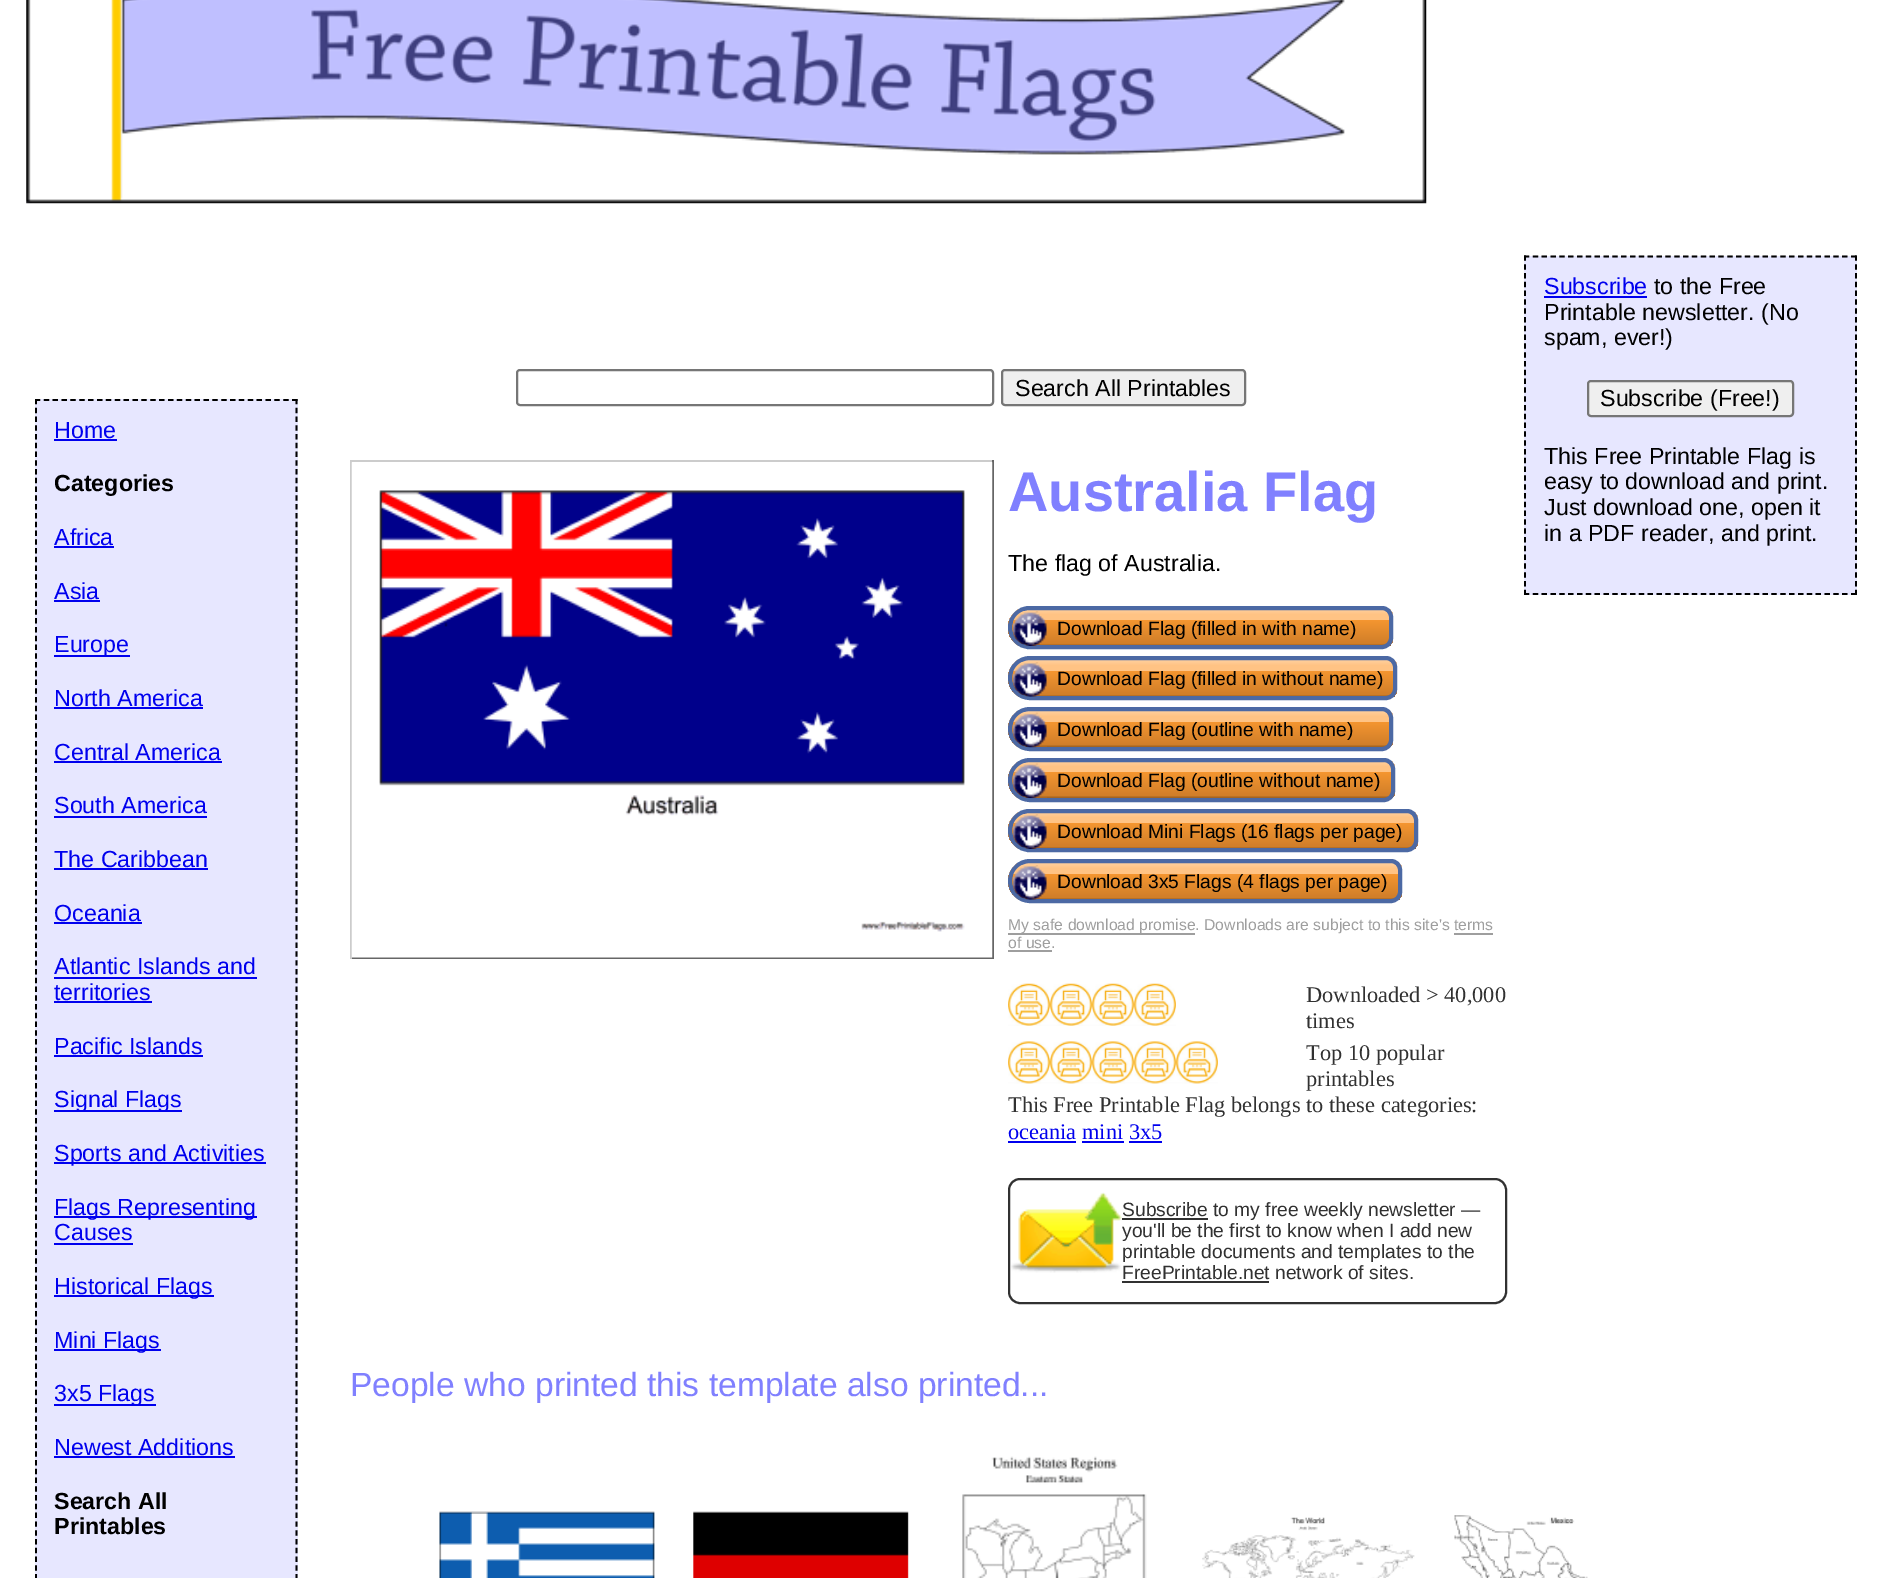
%!PS
<< /PageSize [1891 1578] >> setpagedevice
/rgb { dup -16 bitshift 255 div exch dup -8 bitshift 255 and 255 div exch 255 and 255 div setrgbcolor } def
/font { [ exch dup neg 0 0 3 -1 roll 0 0 ] selectfont } def
/text { moveto show } def
/roundrect { 5 dict begin { /r /h /w /y /x } { exch def } forall
  x r add y moveto x w add y 2 copy h add r arct x w add y h add x 1 index r arct
  x y h add x y r arct x y 2 copy exch w add exch r arct closepath end } def
/picture { 5 dict begin { /h /w /y /x /name } { exch def } forall
  gsave x y translate w h scale
  w h 8 [w 0 0 h 0 0] name (r) file false 3 colorimage grestore end } def
0 1578 translate 1 -1 scale
4 setmiterlimit
/s1 { /LiberationSans-Regular 23.25 font 16#000000 rgb } def
/s2 { /LiberationSans-Regular 23.25 font 16#0000EE rgb } def
/s3 { /LiberationSans-Bold 23.25 font 16#000000 rgb } def
/s4 { /LiberationSans-Bold 56 font 16#8080FF rgb } def
/s5 { /LiberationSans-Regular 19.25 font 16#000000 rgb } def
/s6 { /LiberationSans-Regular 15.75 font 16#9E9E9E rgb } def
/s7 { /LiberationSerif-Regular 22.4 font 16#313131 rgb } def
/s8 { /LiberationSerif-Regular 22.4 font 16#0000EE rgb } def
/s9 { /LiberationSans-Regular 19.25 font 16#313131 rgb } def
/s10 { /LiberationSans-Regular 33.6 font 16#8080FF rgb } def
16#FFFFFF rgb
0 0 1891 1578 rectfill
(pic1.raw) 26 0 1401 204 picture
16#767676 rgb
2 setlinewidth
517 370 476 35 3 roundrect stroke
16#EFEFEF rgb
1002 370 243 35 3 roundrect gsave fill grestore
16#767676 rgb
stroke
s1
(Search All Printables) 1015 396 text
16#E7E7FF rgb
1524 256 333 339 rectfill
16#000000 rgb
1.8 setlinewidth
[5.25 3.59] 0 setdash
1524 256.5 moveto 1857 256.5 lineto stroke
[5.25 3.55] 0 setdash
1856 255.5 moveto 1856 595 lineto stroke
[5.25 3.59] 0 setdash
1524 594 moveto 1857 594 lineto stroke
[5.25 3.55] 0 setdash
1525 255.5 moveto 1525 595 lineto stroke
s2
(Subscribe) 1544 294 text
1544 296 103 2 rectfill
s1
(to the Free) 1654 294 text
(Printable newsletter. \(No) 1544 320 text
(spam, ever!\)) 1544 345 text
16#EFEFEF rgb
1588 381 205 35 3 roundrect gsave fill grestore
16#767676 rgb
2 setlinewidth
[] 0 setdash
stroke
s1
(Subscribe \(Free!\)) 1600 406 text
(This Free Printable Flag is) 1544 464 text
(easy to download and print.) 1544 489 text
(Just download one, open it) 1544 515 text
(in a PDF reader, and print.) 1544 541 text
16#E7E7FF rgb
35 399 263 1179 rectfill
16#000000 rgb
1.8 setlinewidth
[5.25 3.62] 0 setdash
35 400 moveto 297.5 400 lineto stroke
[5.25 3.52] 0 setdash
296.5 399 moveto 296.5 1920 lineto stroke
36 399 moveto 36 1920 lineto stroke
s2
(Home) 54 438 text
54 439 63 2 rectfill
s3
(Categories) 54 491 text
s2
(Africa) 54 545 text
54 546 60 2 rectfill
(Asia) 54 599 text
54 600 46 2 rectfill
54 655 76 2 rectfill
(Europe) 54 652 text
(North America) 54 706 text
54 707 149 2 rectfill
(Central America) 54 760 text
54 761 168 2 rectfill
(South America) 54 813 text
54 816 153 2 rectfill
(The Caribbean) 54 867 text
54 868 154 2 rectfill
(Oceania) 54 921 text
54 922 88 2 rectfill
(Atlantic Islands and) 54 974 text
54 977 203 2 rectfill
(territories) 54 1000 text
54 1001 98 2 rectfill
(Pacific Islands) 54 1054 text
54 1055 149 2 rectfill
54 1110 128 2 rectfill
(Signal Flags) 54 1107 text
54 1162 212 2 rectfill
(Sports and Activities) 54 1161 text
54 1216 203 2 rectfill
(Flags Representing) 54 1215 text
(Causes) 54 1240 text
54 1243 79 2 rectfill
54 1295 160 2 rectfill
(Historical Flags) 54 1294 text
54 1349 107 2 rectfill
(Mini Flags) 54 1348 text
54 1404 102 2 rectfill
(3x5 Flags) 54 1401 text
(Newest Additions) 54 1455 text
54 1456 181 2 rectfill
s3
(Search All) 54 1509 text
(Printables) 54 1534 text
16#CCCCCC rgb
350 460 644 2 rectfill
16#666666 rgb
992 460 2 499 rectfill
350 957 644 2 rectfill
16#CCCCCC rgb
350 460 2 499 rectfill
(pic2.raw) 351 462 642 496 picture
s4
(Australia Flag) 1008 511 text
s1
(The flag of Australia.) 1008 571 text
gsave
1029.5 606 moveto 1382 606 lineto 1388 606 1393 611 1393 617 curveto 1393 638 lineto 1393 644 1388 649 1382 649 curveto 1029.5 649 lineto 1017.5 649 1008 639.5 1008 627.5 curveto 1008 615.5 1017.5 606 1029.5 606 curveto closepath clip newpath
gsave 1008 609 moveto 1393 609 lineto 1393 646 lineto 1008 646 lineto closepath clip newpath
<< /ShadingType 2 /ColorSpace /DeviceRGB /Coords [1201 609 1201 646] /Extend [true true] /Function << /FunctionType 3 /Domain [0 1] /Functions [<< /FunctionType 2 /Domain [0 1] /C0 [1 0.816 0.62] /C1 [1 0.765 0.518] /N 1 >> << /FunctionType 2 /Domain [0 1] /C0 [1 0.765 0.518] /C1 [1 0.765 0.518] /N 1 >> << /FunctionType 2 /Domain [0 1] /C0 [1 0.765 0.518] /C1 [0.957 0.584 0.188] /N 1 >> << /FunctionType 2 /Domain [0 1] /C0 [0.957 0.584 0.188] /C1 [0.816 0.494 0.161] /N 1 >> << /FunctionType 2 /Domain [0 1] /C0 [0.816 0.494 0.161] /C1 [0.749 0.455 0.145] /N 1 >> << /FunctionType 2 /Domain [0 1] /C0 [0.749 0.455 0.145] /C1 [0.643 0.392 0.125] /N 1 >>] /Bounds [0.15 0.3 0.31 0.94 0.95] /Encode [0 1 0 1 0 1 0 1 0 1 0 1] >> >> shfill grestore
grestore
16#4C69A4 rgb
4 setlinewidth
[] 0 setdash
1029.5 608 moveto 1382 608 lineto 1387 608 1391 612 1391 617 curveto 1391 638 lineto 1391 643 1387 647 1382 647 curveto 1029.5 647 lineto 1018.5 647 1010 638.5 1010 627.5 curveto 1010 616.5 1018.5 608 1029.5 608 curveto closepath stroke
(pic3.raw) 1013 611 34 35 picture
s5
(Download Flag \(filled in with name\)) 1057 635 text
gsave
1030 656 moveto 1386 656 lineto 1392 656 1397 661 1397 667 curveto 1397 689 lineto 1397 695 1392 700 1386 700 curveto 1030 700 lineto 1018 700 1008 690 1008 678 curveto 1008 666 1018 656 1030 656 curveto closepath clip newpath
gsave 1008 660 moveto 1397 660 lineto 1397 697 lineto 1008 697 lineto closepath clip newpath
<< /ShadingType 2 /ColorSpace /DeviceRGB /Coords [1202 660 1202 697] /Extend [true true] /Function << /FunctionType 3 /Domain [0 1] /Functions [<< /FunctionType 2 /Domain [0 1] /C0 [1 0.816 0.62] /C1 [1 0.765 0.518] /N 1 >> << /FunctionType 2 /Domain [0 1] /C0 [1 0.765 0.518] /C1 [1 0.765 0.518] /N 1 >> << /FunctionType 2 /Domain [0 1] /C0 [1 0.765 0.518] /C1 [0.957 0.584 0.188] /N 1 >> << /FunctionType 2 /Domain [0 1] /C0 [0.957 0.584 0.188] /C1 [0.816 0.494 0.161] /N 1 >> << /FunctionType 2 /Domain [0 1] /C0 [0.816 0.494 0.161] /C1 [0.749 0.455 0.145] /N 1 >> << /FunctionType 2 /Domain [0 1] /C0 [0.749 0.455 0.145] /C1 [0.643 0.392 0.125] /N 1 >>] /Bounds [0.15 0.3 0.31 0.94 0.95] /Encode [0 1 0 1 0 1 0 1 0 1 0 1] >> >> shfill grestore
grestore
16#4C69A4 rgb
1030 658 moveto 1386 658 lineto 1391 658 1395 662 1395 667 curveto 1395 689 lineto 1395 694 1391 698 1386 698 curveto 1030 698 lineto 1019 698 1010 689 1010 678 curveto 1010 667 1019 658 1030 658 curveto closepath stroke
(pic4.raw) 1013 662 34 35 picture
s5
(Download Flag \(filled in without name\)) 1057 685 text
gsave
1030 707 moveto 1382 707 lineto 1388 707 1393 712 1393 718 curveto 1393 740 lineto 1393 746 1388 751 1382 751 curveto 1030 751 lineto 1018 751 1008 741 1008 729 curveto 1008 717 1018 707 1030 707 curveto closepath clip newpath
gsave 1008 711 moveto 1393 711 lineto 1393 747 lineto 1008 747 lineto closepath clip newpath
<< /ShadingType 2 /ColorSpace /DeviceRGB /Coords [1201 711 1201 747] /Extend [true true] /Function << /FunctionType 3 /Domain [0 1] /Functions [<< /FunctionType 2 /Domain [0 1] /C0 [1 0.816 0.62] /C1 [1 0.765 0.518] /N 1 >> << /FunctionType 2 /Domain [0 1] /C0 [1 0.765 0.518] /C1 [1 0.765 0.518] /N 1 >> << /FunctionType 2 /Domain [0 1] /C0 [1 0.765 0.518] /C1 [0.957 0.584 0.188] /N 1 >> << /FunctionType 2 /Domain [0 1] /C0 [0.957 0.584 0.188] /C1 [0.816 0.494 0.161] /N 1 >> << /FunctionType 2 /Domain [0 1] /C0 [0.816 0.494 0.161] /C1 [0.749 0.455 0.145] /N 1 >> << /FunctionType 2 /Domain [0 1] /C0 [0.749 0.455 0.145] /C1 [0.643 0.392 0.125] /N 1 >>] /Bounds [0.15 0.3 0.31 0.94 0.95] /Encode [0 1 0 1 0 1 0 1 0 1 0 1] >> >> shfill grestore
grestore
16#4C69A4 rgb
1030 709 moveto 1382 709 lineto 1387 709 1391 713 1391 718 curveto 1391 740 lineto 1391 745 1387 749 1382 749 curveto 1030 749 lineto 1019 749 1010 740 1010 729 curveto 1010 718 1019 709 1030 709 curveto closepath stroke
(pic5.raw) 1013 712 34 36 picture
s5
(Download Flag \(outline with name\)) 1057 736 text
gsave
1030 758 moveto 1384 758 lineto 1390 758 1395 763 1395 769 curveto 1395 791 lineto 1395 797 1390 802 1384 802 curveto 1030 802 lineto 1018 802 1008 792 1008 780 curveto 1008 768 1018 758 1030 758 curveto closepath clip newpath
gsave 1008 761 moveto 1395 761 lineto 1395 798 lineto 1008 798 lineto closepath clip newpath
<< /ShadingType 2 /ColorSpace /DeviceRGB /Coords [1201 761 1201 798] /Extend [true true] /Function << /FunctionType 3 /Domain [0 1] /Functions [<< /FunctionType 2 /Domain [0 1] /C0 [1 0.816 0.62] /C1 [1 0.765 0.518] /N 1 >> << /FunctionType 2 /Domain [0 1] /C0 [1 0.765 0.518] /C1 [1 0.765 0.518] /N 1 >> << /FunctionType 2 /Domain [0 1] /C0 [1 0.765 0.518] /C1 [0.957 0.584 0.188] /N 1 >> << /FunctionType 2 /Domain [0 1] /C0 [0.957 0.584 0.188] /C1 [0.816 0.494 0.161] /N 1 >> << /FunctionType 2 /Domain [0 1] /C0 [0.816 0.494 0.161] /C1 [0.749 0.455 0.145] /N 1 >> << /FunctionType 2 /Domain [0 1] /C0 [0.749 0.455 0.145] /C1 [0.643 0.392 0.125] /N 1 >>] /Bounds [0.15 0.3 0.31 0.94 0.95] /Encode [0 1 0 1 0 1 0 1 0 1 0 1] >> >> shfill grestore
grestore
16#4C69A4 rgb
1030 760 moveto 1384 760 lineto 1389 760 1393 764 1393 769 curveto 1393 791 lineto 1393 796 1389 800 1384 800 curveto 1030 800 lineto 1019 800 1010 791 1010 780 curveto 1010 769 1019 760 1030 760 curveto closepath stroke
(pic6.raw) 1013 763 34 36 picture
s5
(Download Flag \(outline without name\)) 1057 787 text
gsave
1029.5 809 moveto 1407 809 lineto 1413 809 1418 814 1418 820 curveto 1418 841 lineto 1418 847 1413 852 1407 852 curveto 1029.5 852 lineto 1017.5 852 1008 842.5 1008 830.5 curveto 1008 818.5 1017.5 809 1029.5 809 curveto closepath clip newpath
gsave 1008 812 moveto 1418 812 lineto 1418 849 lineto 1008 849 lineto closepath clip newpath
<< /ShadingType 2 /ColorSpace /DeviceRGB /Coords [1213 812 1213 849] /Extend [true true] /Function << /FunctionType 3 /Domain [0 1] /Functions [<< /FunctionType 2 /Domain [0 1] /C0 [1 0.816 0.62] /C1 [1 0.765 0.518] /N 1 >> << /FunctionType 2 /Domain [0 1] /C0 [1 0.765 0.518] /C1 [1 0.765 0.518] /N 1 >> << /FunctionType 2 /Domain [0 1] /C0 [1 0.765 0.518] /C1 [0.957 0.584 0.188] /N 1 >> << /FunctionType 2 /Domain [0 1] /C0 [0.957 0.584 0.188] /C1 [0.816 0.494 0.161] /N 1 >> << /FunctionType 2 /Domain [0 1] /C0 [0.816 0.494 0.161] /C1 [0.749 0.455 0.145] /N 1 >> << /FunctionType 2 /Domain [0 1] /C0 [0.749 0.455 0.145] /C1 [0.643 0.392 0.125] /N 1 >>] /Bounds [0.15 0.3 0.31 0.94 0.95] /Encode [0 1 0 1 0 1 0 1 0 1 0 1] >> >> shfill grestore
grestore
16#4C69A4 rgb
1029.5 811 moveto 1407 811 lineto 1412 811 1416 815 1416 820 curveto 1416 841 lineto 1416 846 1412 850 1407 850 curveto 1029.5 850 lineto 1018.5 850 1010 841.5 1010 830.5 curveto 1010 819.5 1018.5 811 1029.5 811 curveto closepath stroke
(pic3.raw) 1013 814 34 35 picture
s5
(Download Mini Flags \(16 flags per page\)) 1057 838 text
gsave
1030 859 moveto 1391 859 lineto 1397 859 1402 864 1402 870 curveto 1402 892 lineto 1402 898 1397 903 1391 903 curveto 1030 903 lineto 1018 903 1008 893 1008 881 curveto 1008 869 1018 859 1030 859 curveto closepath clip newpath
gsave 1008 863 moveto 1402 863 lineto 1402 900 lineto 1008 900 lineto closepath clip newpath
<< /ShadingType 2 /ColorSpace /DeviceRGB /Coords [1205 863 1205 900] /Extend [true true] /Function << /FunctionType 3 /Domain [0 1] /Functions [<< /FunctionType 2 /Domain [0 1] /C0 [1 0.816 0.62] /C1 [1 0.765 0.518] /N 1 >> << /FunctionType 2 /Domain [0 1] /C0 [1 0.765 0.518] /C1 [1 0.765 0.518] /N 1 >> << /FunctionType 2 /Domain [0 1] /C0 [1 0.765 0.518] /C1 [0.957 0.584 0.188] /N 1 >> << /FunctionType 2 /Domain [0 1] /C0 [0.957 0.584 0.188] /C1 [0.816 0.494 0.161] /N 1 >> << /FunctionType 2 /Domain [0 1] /C0 [0.816 0.494 0.161] /C1 [0.749 0.455 0.145] /N 1 >> << /FunctionType 2 /Domain [0 1] /C0 [0.749 0.455 0.145] /C1 [0.643 0.392 0.125] /N 1 >>] /Bounds [0.15 0.3 0.31 0.94 0.95] /Encode [0 1 0 1 0 1 0 1 0 1 0 1] >> >> shfill grestore
grestore
16#4C69A4 rgb
1030 861 moveto 1391 861 lineto 1396 861 1400 865 1400 870 curveto 1400 892 lineto 1400 897 1396 901 1391 901 curveto 1030 901 lineto 1019 901 1010 892 1010 881 curveto 1010 870 1019 861 1030 861 curveto closepath stroke
(pic7.raw) 1013 865 34 35 picture
s5
(Download 3x5 Flags \(4 flags per page\)) 1057 888 text
16#9E9E9E rgb
1008 933 187 2 rectfill
s6
(My safe download promise. Downloads are subject to this site's terms) 1008 930 text
(of use.) 1008 948 text
1454 933 39 2 rectfill
1008 950 44 2 rectfill
(pic8.raw) 1008 983 42 43 picture
(pic8.raw) 1050 983 42 43 picture
(pic9.raw) 1092 983 42 43 picture
(pic10.raw) 1134 983 42 43 picture
s7
(Downloaded > 40,000) 1306 1002 text
(times) 1306 1028 text
(pic11.raw) 1008 1041 42 43 picture
(pic11.raw) 1050 1041 42 43 picture
(pic12.raw) 1092 1041 42 43 picture
(pic13.raw) 1134 1041 42 43 picture
(pic12.raw) 1176 1041 42 43 picture
(Top 10 popular) 1306 1060 text
(printables) 1306 1086 text
(This Free Printable Flag belongs to these categories:) 1008 1112 text
s8
(oceania mini 3x5) 1008 1139 text
1008 1141 68 2 rectfill
1082 1141 42 2 rectfill
1129 1141 33 2 rectfill
16#313131 rgb
2 setlinewidth
1009 1179 497 124 11 roundrect stroke
(pic14.raw) 1011 1192 111 81 picture
1122 1218 86 2 rectfill
s9
(Subscribe to my free weekly newsletter —) 1122 1216 text
(you'll be the first to know when I add new) 1122 1237 text
(printable documents and templates to the) 1122 1258 text
(FreePrintable.net network of sites.) 1122 1279 text
1122 1281 147 2 rectfill
s10
(People who printed this template also printed...) 350 1396 text
(pic15.raw) 439 1511 216 67 picture
(pic16.raw) 693 1511 216 67 picture
(pic17.raw) 962 1456 185 122 picture
(pic18.raw) 1202 1517 213 61 picture
(pic19.raw) 1454 1515 134 63 picture
showpage
